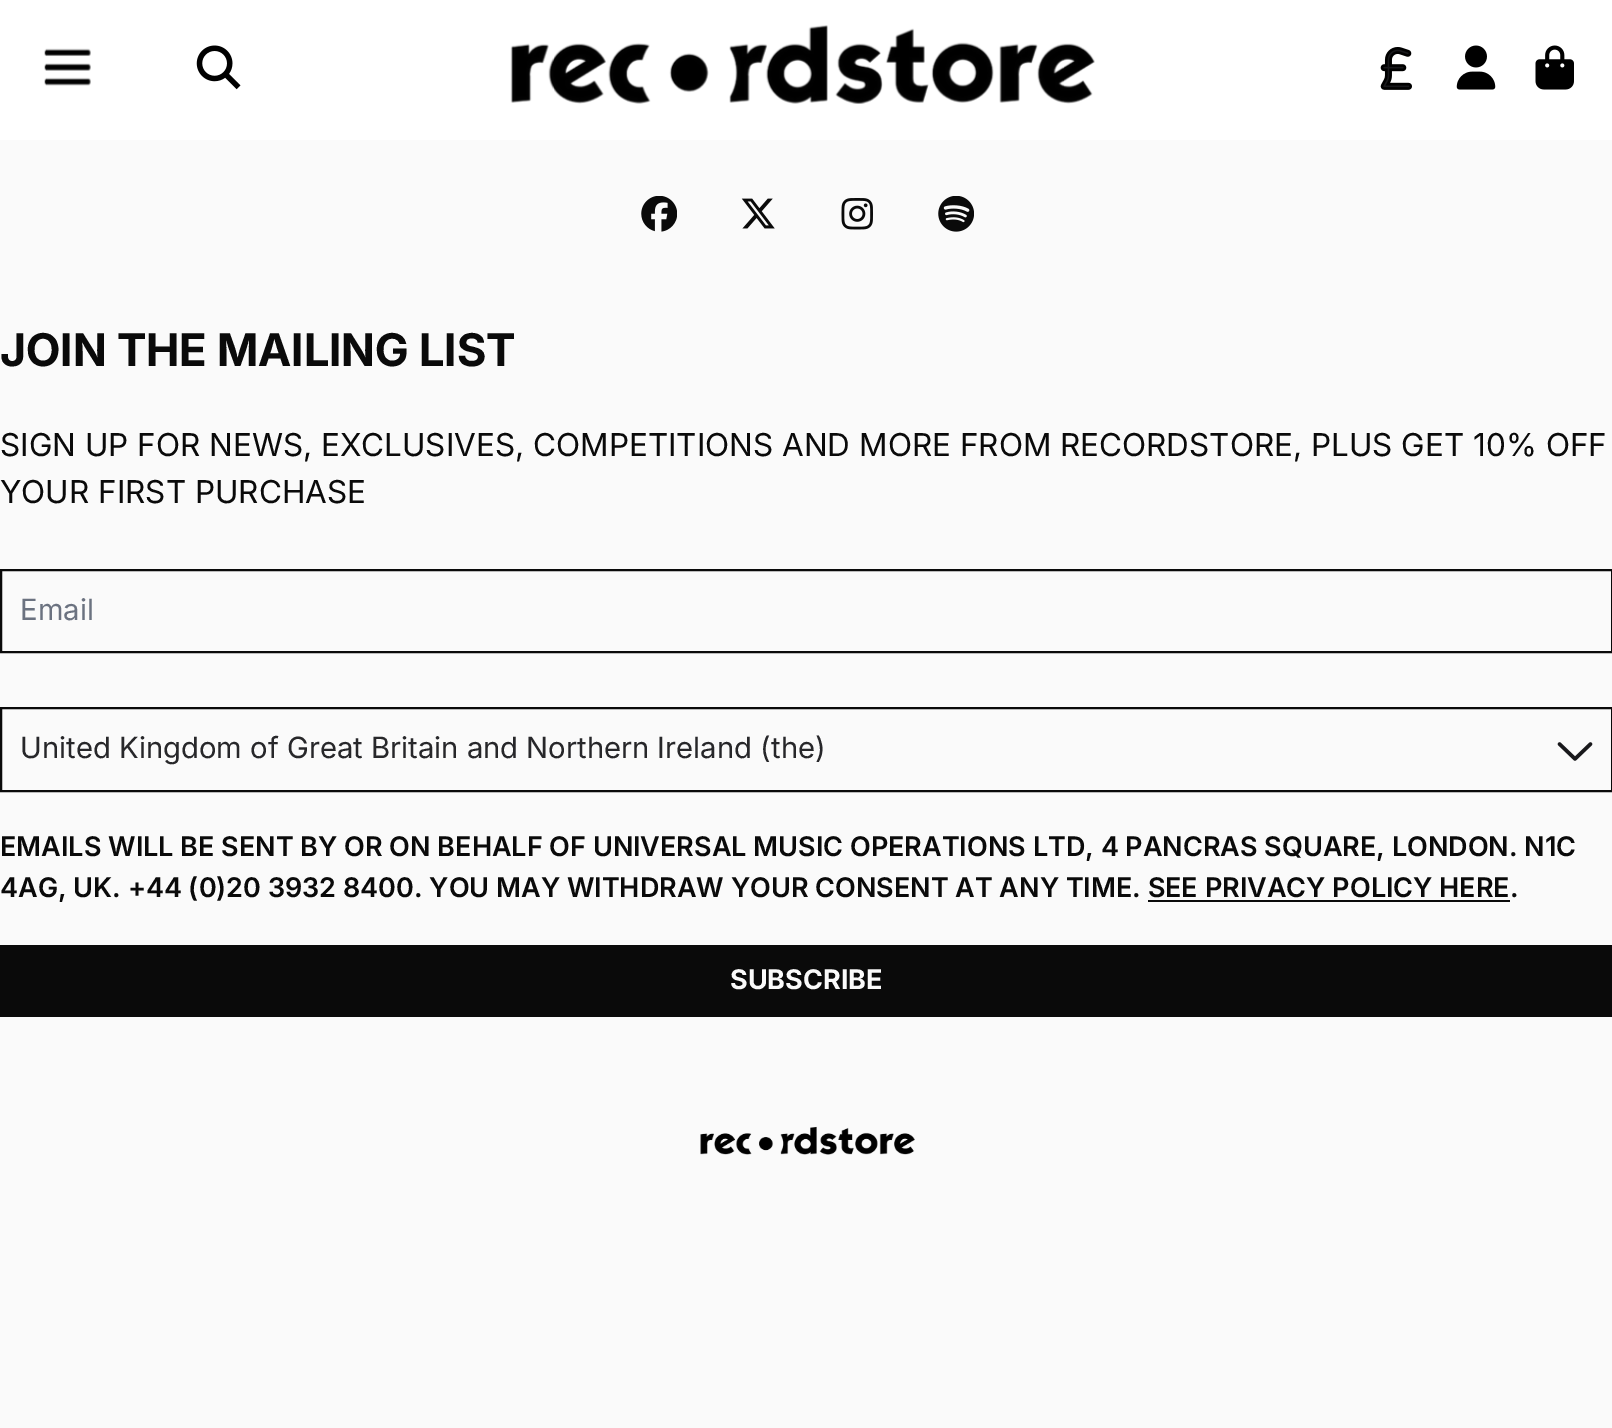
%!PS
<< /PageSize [1612 1428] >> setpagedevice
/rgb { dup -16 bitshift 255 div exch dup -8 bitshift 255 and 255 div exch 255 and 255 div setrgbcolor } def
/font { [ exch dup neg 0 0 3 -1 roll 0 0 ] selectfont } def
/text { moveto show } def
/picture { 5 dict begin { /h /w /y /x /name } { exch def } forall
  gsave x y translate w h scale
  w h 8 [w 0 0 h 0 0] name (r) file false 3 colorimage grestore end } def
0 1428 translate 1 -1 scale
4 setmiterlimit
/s1 { /Inter-Bold 45 font 16#0A0A0A rgb } def
/s2 { /Inter-Regular 31.5 font 16#0A0A0A rgb } def
/s3 { /Inter-Regular 29.25 font 16#6B7280 rgb } def
/s4 { /Inter-Regular 29.25 font 16#27272A rgb } def
/s5 { /Inter-SemiBold 27 font 16#0A0A0A rgb } def
/s6 { /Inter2-Bold 27 font 16#FAFAFA rgb } def
16#FAFAFA rgb
0 0 1612 1428 rectfill
16#FFFFFF rgb
0 0 1612 140 rectfill
(pic1.raw) 44 48 47 38 picture
(pic2.raw) 196 45 45 45 picture
(pic3.raw) 510 25 585 79 picture
(pic4.raw) 1380 47 32 43 picture
(pic5.raw) 1456 45 40 45 picture
(pic6.raw) 1535 45 39 45 picture
(pic7.raw) 641 196 36 36 picture
(pic8.raw) 741 198 34 31 picture
(pic9.raw) 841 198 32 32 picture
(pic10.raw) 938 196 36 36 picture
s1
(JOIN THE MAILING LIST) 0 366 text
s2
(SIGN UP FOR NEWS, EXCLUSIVES, COMPETITIONS AND MORE FROM RECORDSTORE, PLUS GET 10% OFF) 0 456 text
(YOUR FIRST PURCHASE) 0 503 text
2 setlinewidth
1 570 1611 82 rectstroke
s3
(Email) 20 620 text
16#0A0A0A rgb
1 708 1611 83 rectstroke
s4
(United Kingdom of Great Britain and Northern Ireland \(the\)) 20 758 text
(pic11.raw) 1557 742 36 19 picture
s5
(EMAILS WILL BE SENT BY OR ON BEHALF OF UNIVERSAL MUSIC OPERATIONS LTD, 4 PANCRAS SQUARE, LONDON. N1C) 0 856 text
(4AG, UK. +44 \(0\)20 3932 8400. YOU MAY WITHDRAW YOUR CONSENT AT ANY TIME. SEE PRIVACY POLICY HERE.) 0 897 text
1148 900 362 2 rectfill
0 945 1612 72 rectfill
s6
(SUBSCRIBE) 730 989 text
(pic12.raw) 700 1126 215 29 picture
showpage
